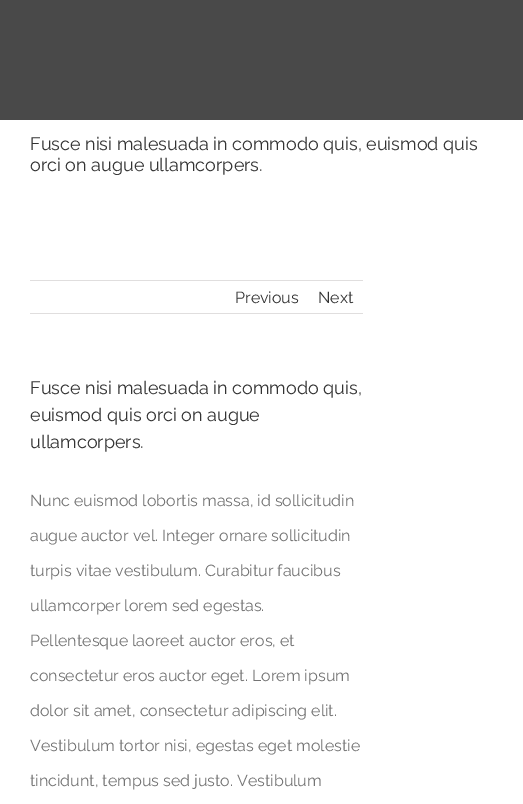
%!PS
<< /PageSize [523 804] >> setpagedevice
/rgb { dup -16 bitshift 255 div exch dup -8 bitshift 255 and 255 div exch 255 and 255 div setrgbcolor } def
/font { [ exch dup neg 0 0 3 -1 roll 0 0 ] selectfont } def
/text { moveto show } def
0 804 translate 1 -1 scale
4 setmiterlimit
/s1 { /Raleway-Regular 18 font 16#333333 rgb } def
/s2 { /Raleway-Regular 16 font 16#333333 rgb } def
/s3 { /Raleway-Regular 16 font 16#747474 rgb } def
16#FFFFFF rgb
0 0 523 804 rectfill
16#494949 rgb
0 0 523 120 rectfill
s1
(Fusce nisi malesuada in commodo quis, euismod quis) 30 150 text
(orci on augue ullamcorpers.) 30 171 text
16#E0DEDE rgb
30 280 333 1 rectfill
30 313 333 1 rectfill
s2
(Previous) 235 303 text
(Next) 318 303 text
s1
(Fusce nisi malesuada in commodo quis,) 30 394 text
(euismod quis orci on augue) 30 421 text
(ullamcorpers.) 30 448 text
s3
(Nunc euismod lobortis massa, id sollicitudin) 30 506 text
(augue auctor vel. Integer ornare sollicitudin) 30 541 text
(turpis vitae vestibulum. Curabitur faucibus) 30 576 text
(ullamcorper lorem sed egestas.) 30 611 text
(Pellentesque laoreet auctor eros, et) 30 646 text
(consectetur eros auctor eget. Lorem ipsum) 30 681 text
(dolor sit amet, consectetur adipiscing elit.) 30 716 text
(Vestibulum tortor nisi, egestas eget molestie) 30 751 text
(tincidunt, tempus sed justo. Vestibulum) 30 786 text
showpage
